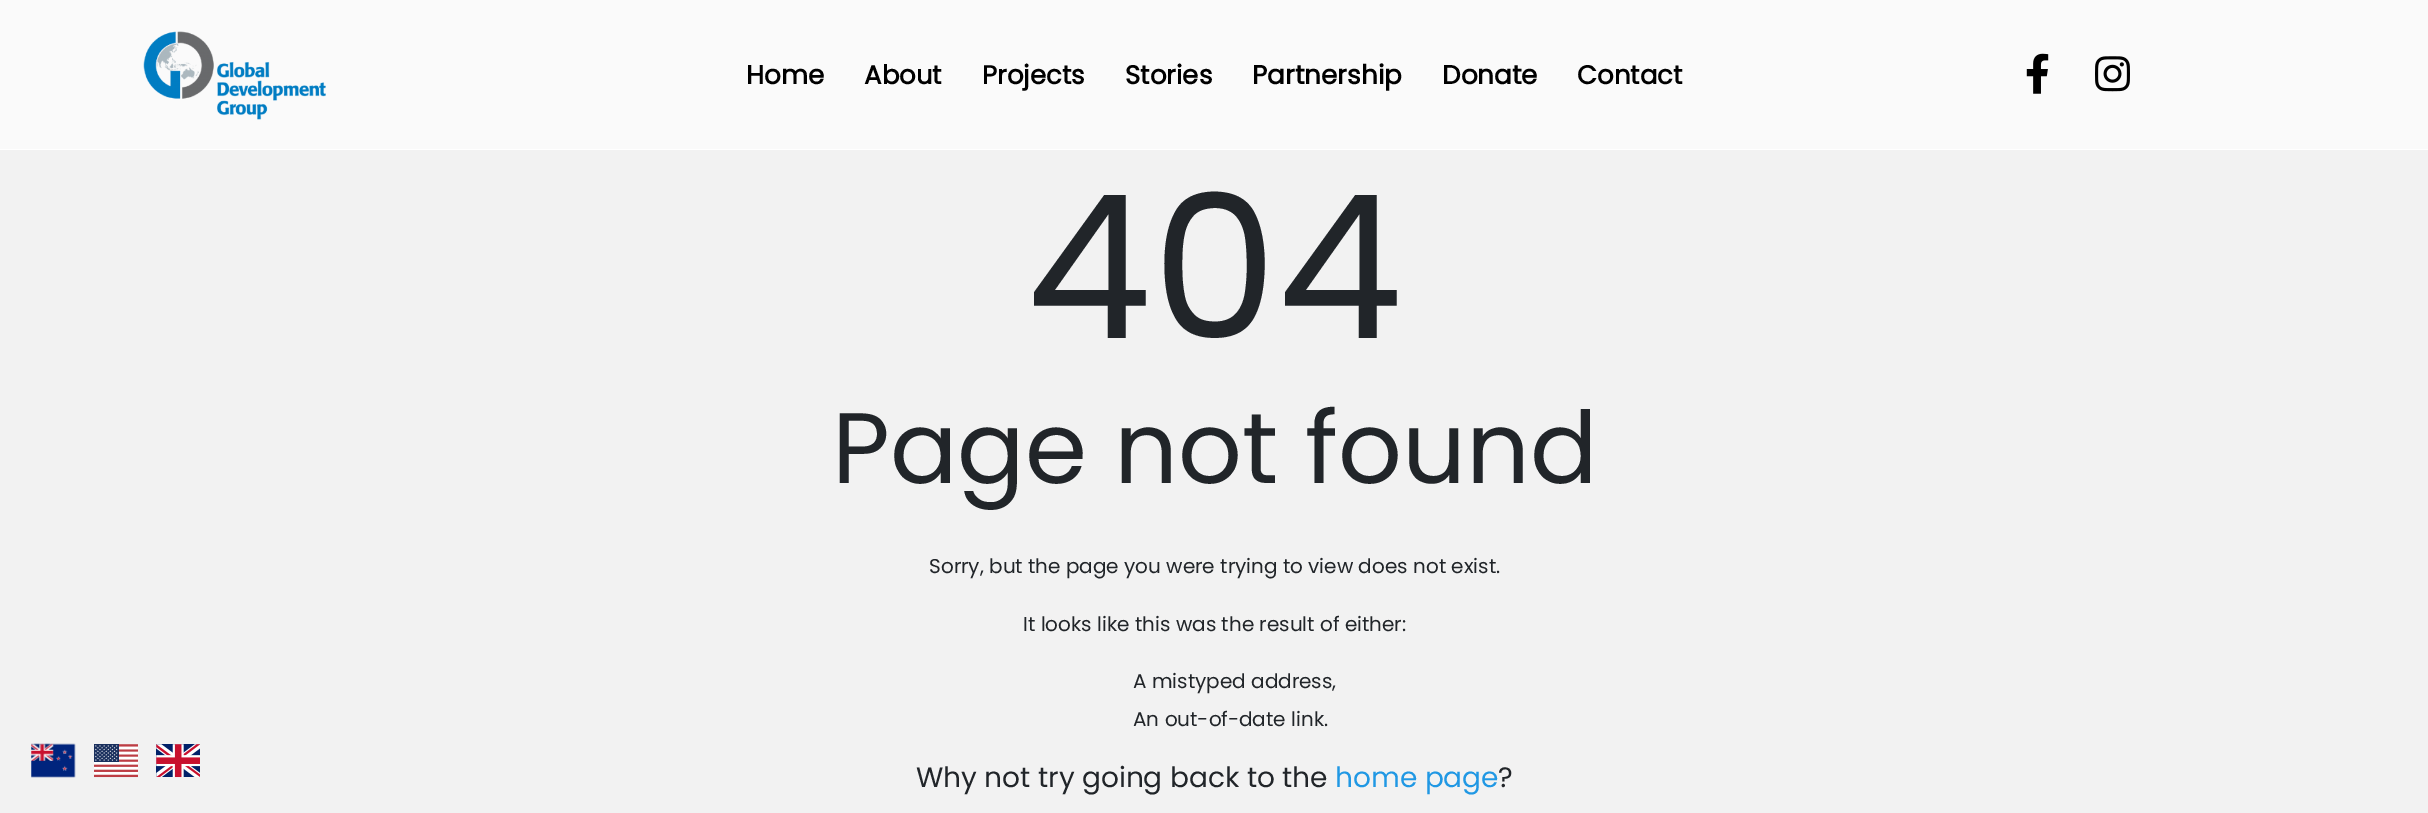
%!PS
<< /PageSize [2428 813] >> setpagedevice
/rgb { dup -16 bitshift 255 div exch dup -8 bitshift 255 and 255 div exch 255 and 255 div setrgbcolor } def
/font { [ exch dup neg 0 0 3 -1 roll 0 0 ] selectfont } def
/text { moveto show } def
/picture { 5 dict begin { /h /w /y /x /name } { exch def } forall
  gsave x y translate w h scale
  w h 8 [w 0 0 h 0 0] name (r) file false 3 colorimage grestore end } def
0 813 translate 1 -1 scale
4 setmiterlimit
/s1 { /Poppins-Bold 26.25 font 16#000000 rgb } def
/s2 { /Poppins-Bold 26 font 16#000000 rgb } def
/s3 { /Poppins-Regular 200 font 16#212529 rgb } def
/s4 { /Poppins-Regular 100 font 16#212529 rgb } def
/s5 { /Poppins-Regular 20 font 16#212529 rgb } def
/s6 { /Poppins-Regular 28 font 16#212529 rgb } def
/s7 { /Poppins-Regular 28 font 16#2098E4 rgb } def
16#F2F2F2 rgb
0 0 2428 813 rectfill
16#FAFAFA rgb
0 0 2428 149 rectfill
16#FFFFFF rgb
0 149 2428 1 rectfill
(pic1.raw) 143 31 183 89 picture
s1
(Home) 746 84 text
s2
(About) 864 84 text
(Projects) 982 84 text
(Stories) 1125 84 text
s1
(Partnership) 1252 84 text
(Donate) 1442 84 text
s2
(Contact) 1577 84 text
(pic2.raw) 2026 53 23 41 picture
(pic3.raw) 2095 56 35 36 picture
(pic4.raw) 31 743 45 35 picture
(pic5.raw) 94 744 44 34 picture
(pic6.raw) 156 744 44 34 picture
s3
(404) 1026 338 text
s4
(Page not found) 832 483 text
s5
(Sorry, but the page you were trying to view does not exist.) 929 573 text
(It looks like this was the result of either:) 1023 631 text
(A mistyped address,) 1133 688 text
(An out-of-date link.) 1133 726 text
s6
(Why not try going back to the) 916 787 text
s7
(home page) 1335 787 text
s6
(?) 1498 787 text
showpage
